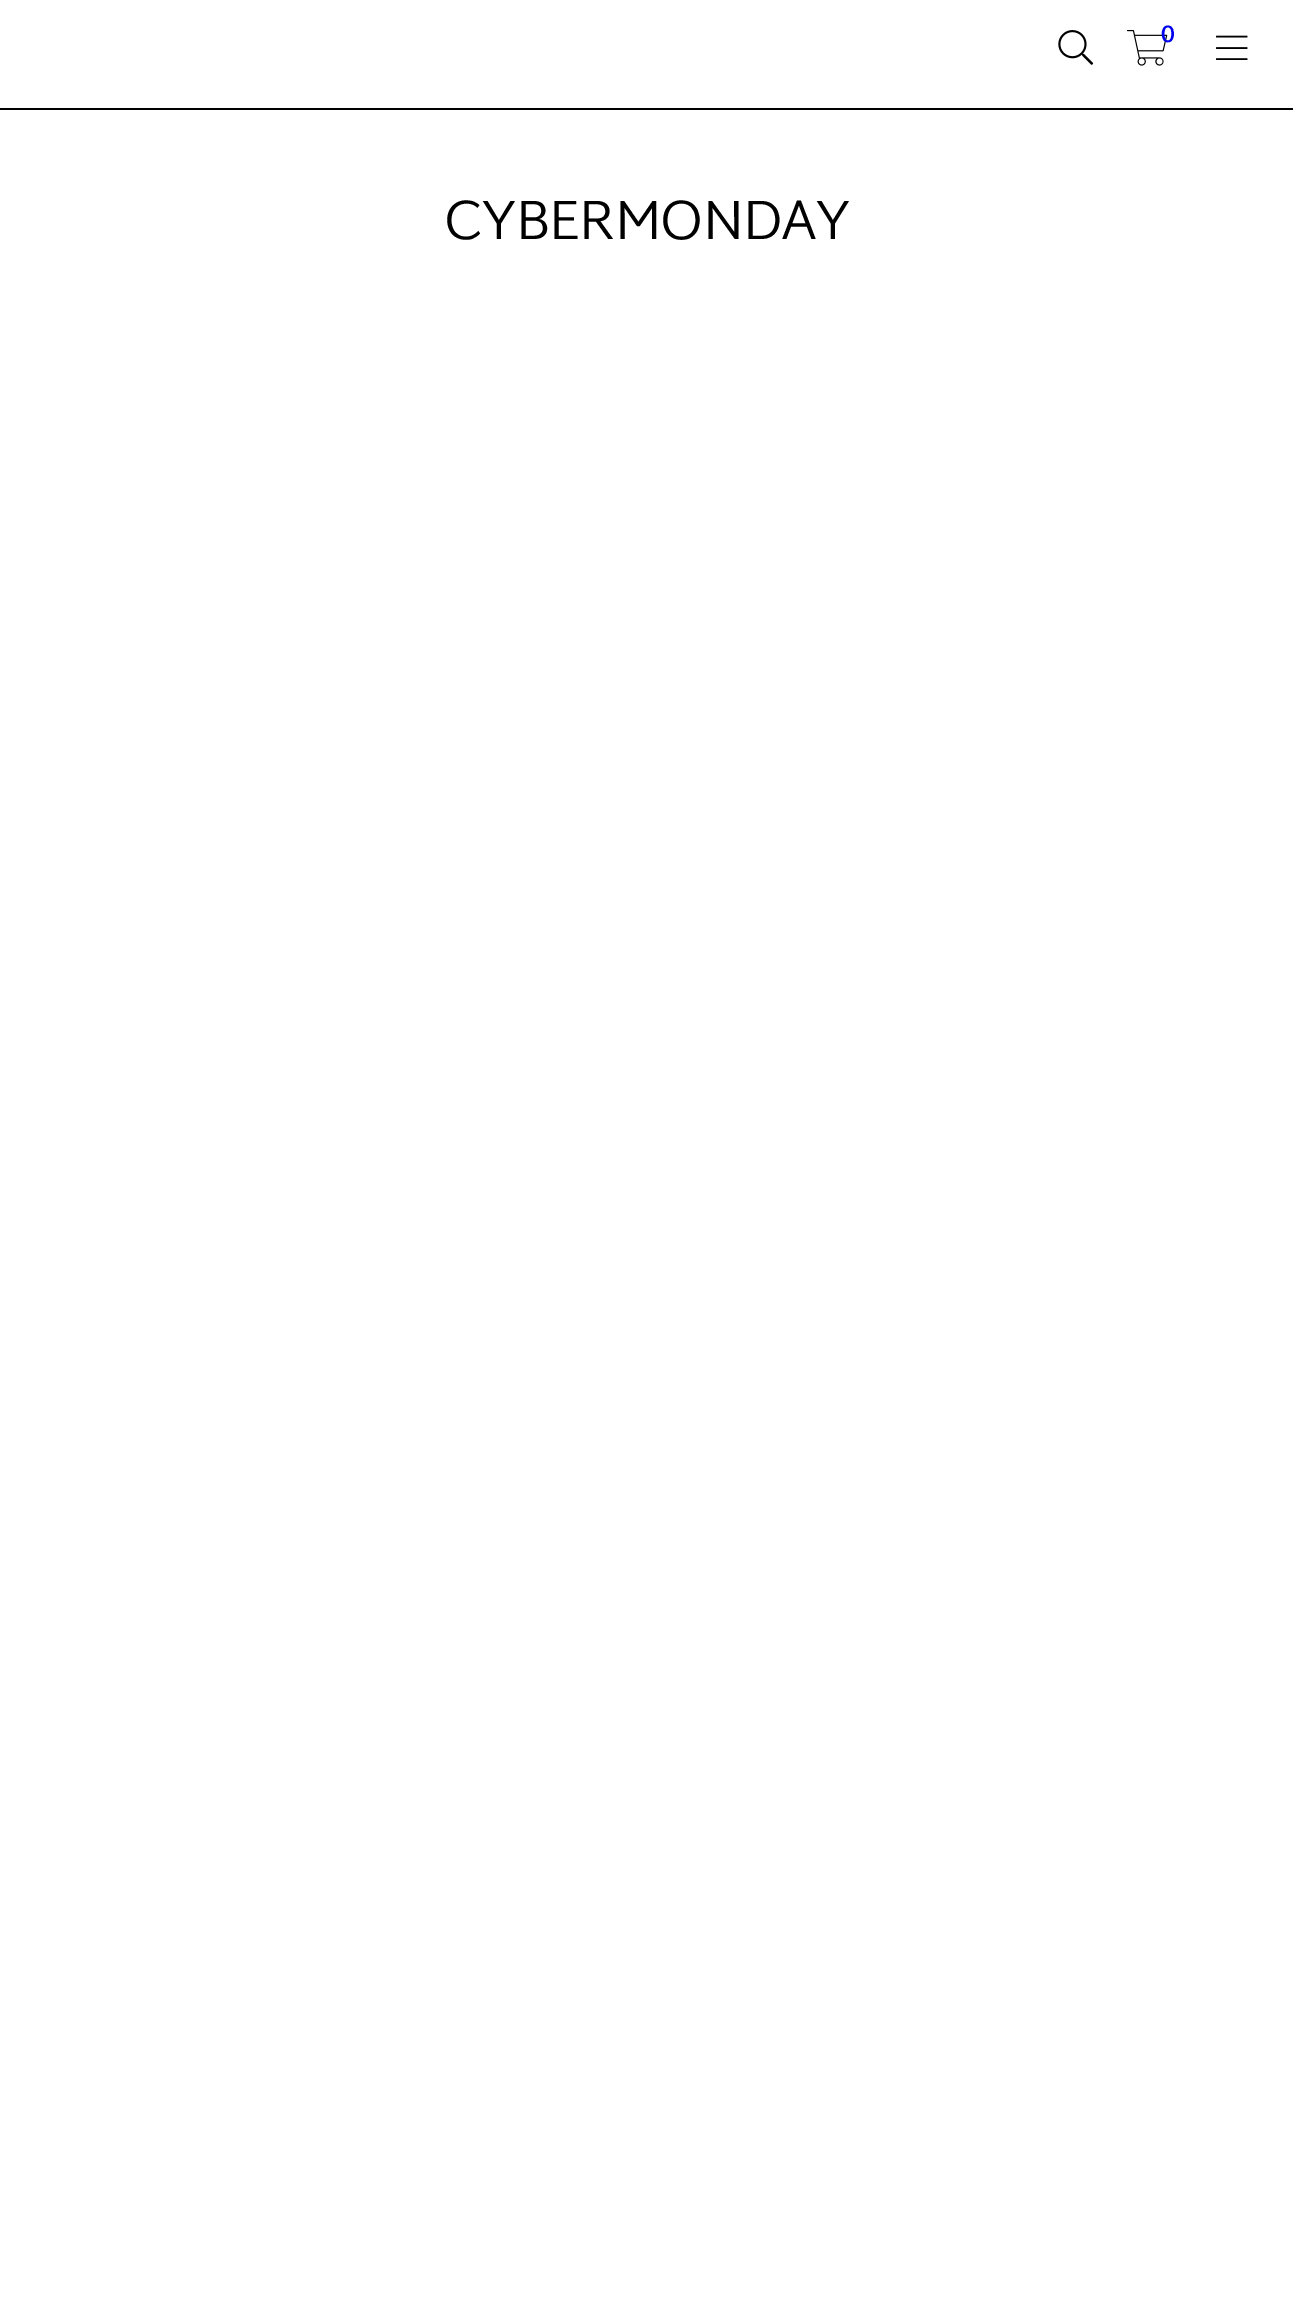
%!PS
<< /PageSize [1293 2310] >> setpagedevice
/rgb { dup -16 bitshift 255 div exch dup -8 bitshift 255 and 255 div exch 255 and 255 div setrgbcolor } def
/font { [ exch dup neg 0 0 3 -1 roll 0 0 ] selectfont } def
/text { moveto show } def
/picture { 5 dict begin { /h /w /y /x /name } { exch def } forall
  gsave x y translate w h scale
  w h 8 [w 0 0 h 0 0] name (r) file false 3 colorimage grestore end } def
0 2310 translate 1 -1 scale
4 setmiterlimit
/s1 { /MartelSans-SemiBold 24 font 16#0000EE rgb } def
16#FFFFFF rgb
0 0 1293 2310 rectfill
(pic1.raw) 1058 30 36 35 picture
(pic2.raw) 1126 30 42 36 picture
s1
(0) 1161 42 text
(pic3.raw) 1216 35 32 25 picture
16#000000 rgb
0 108 1293 2 rectfill
/MartelSans-Light 56 font
444 239 moveto -2 0 (CYBERMONDAY) ashow
showpage
